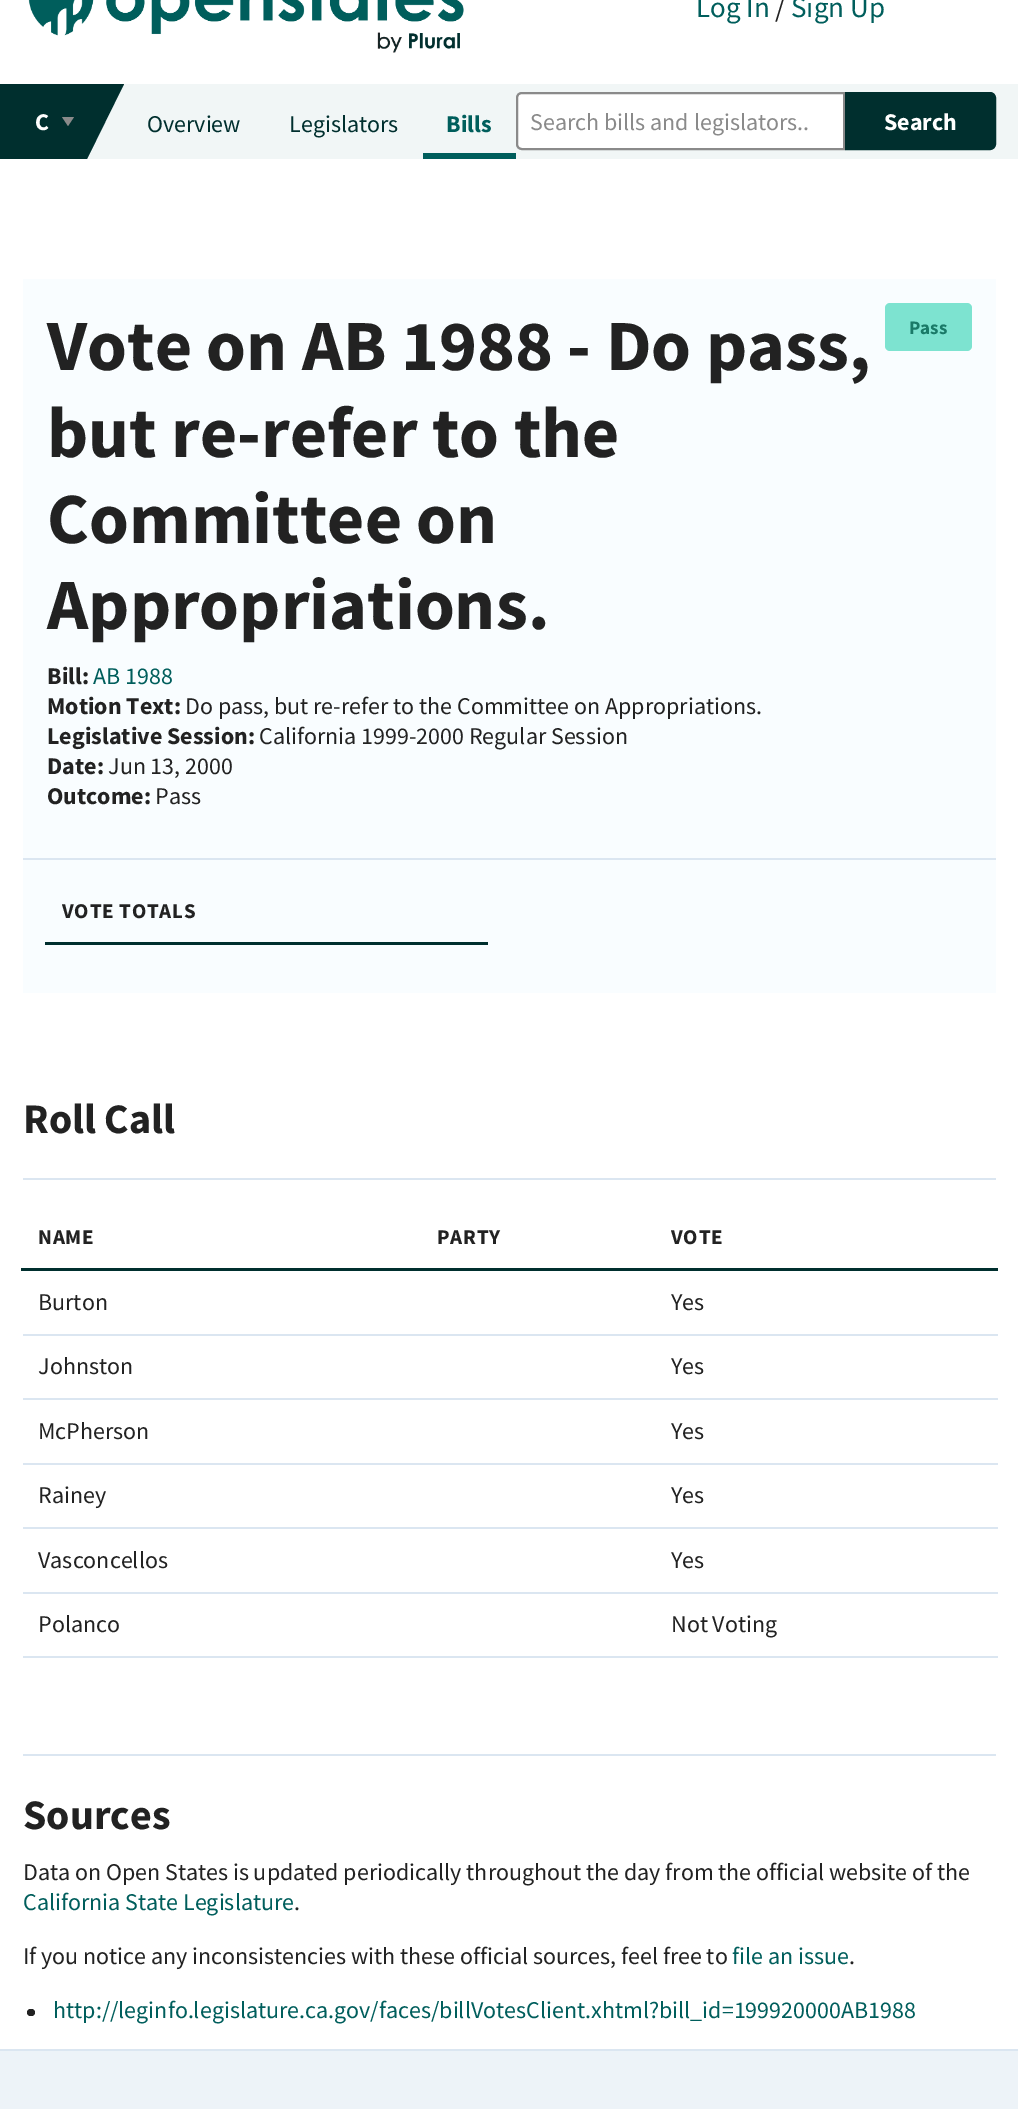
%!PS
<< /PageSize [1018 2109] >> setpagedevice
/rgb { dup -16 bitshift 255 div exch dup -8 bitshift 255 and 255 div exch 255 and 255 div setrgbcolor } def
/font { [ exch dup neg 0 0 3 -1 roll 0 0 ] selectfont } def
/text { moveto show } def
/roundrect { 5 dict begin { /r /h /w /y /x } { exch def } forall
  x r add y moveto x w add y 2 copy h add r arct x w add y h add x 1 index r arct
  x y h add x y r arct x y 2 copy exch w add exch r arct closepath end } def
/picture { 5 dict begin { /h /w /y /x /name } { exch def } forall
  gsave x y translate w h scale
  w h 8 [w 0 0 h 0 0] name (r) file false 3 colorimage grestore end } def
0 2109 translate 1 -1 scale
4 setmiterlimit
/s1 { /SourceSansPro-Regular 29 font 16#005E5C rgb } def
/s2 { /SourceSansPro-Regular 29 font 16#222222 rgb } def
/s3 { /SourceSansPro-Bold 24 font 16#FFFFFF rgb } def
/s4 { /SourceSansPro-Regular 24 font 16#002F2E rgb } def
/s5 { /SourceSansPro-Bold 24 font 16#005E5C rgb } def
/s6 { /SourceSansPro-Regular 24 font 16#8A8A8A rgb } def
/s7 { /SourceSansPro-Bold 72 font 16#222222 rgb } def
/s8 { /SourceSansPro-Bold 19 font 16#1A7A68 rgb } def
/s9 { /SourceSansPro-Bold 24 font 16#222222 rgb } def
/s10 { /SourceSansPro-Regular 24 font 16#005E5C rgb } def
/s11 { /SourceSansPro-Regular 24 font 16#222222 rgb } def
/s12 { /SourceSansPro-Bold 42 font 16#222222 rgb } def
16#FFFFFF rgb
0 0 1018 2109 rectfill
(pic1.raw) 28 0 436 53 picture
s1
(Log In) 696 17 text
s2
(/) 775 17 text
s1
(Sign Up) 791 17 text
16#002F2E rgb
0 84 87 75 rectfill
16#F1F6F6 rgb
87 84 931 75 rectfill
16#8A8A8A rgb
62 117 moveto 74 117 lineto 68 126 lineto closepath fill
s3
(C) 35 130 text
16#002F2E rgb
87 159 moveto 87 84 lineto 124 84 lineto closepath fill
s4
(Overview) 147 132 text
(Legislators) 289 132 text
16#005E5C rgb
423 153 93 6 rectfill
s5
(Bills) 446 132 text
16#FFFFFF rgb
522 93 moveto 844 93 lineto 844 149 lineto 522 149 lineto 519 149 517 147 517 144 curveto 517 98 lineto 517 95 519 93 522 93 curveto closepath gsave fill grestore
16#8A8A8A rgb
2 setlinewidth
stroke
s6
(Search bills and legislators..) 530 130 text
16#002F2E rgb
846.5 93.5 moveto 990 93.5 lineto 992.5 93.5 994.5 95.5 994.5 98 curveto 994.5 144 lineto 994.5 146.5 992.5 148.5 990 148.5 curveto 846.5 148.5 lineto closepath gsave fill grestore
3 setlinewidth
stroke
s3
(Search) 884 130 text
16#F9FDFF rgb
23 279 973 714 rectfill
s7
(Vote on AB 1988 - Do pass,) 47 370 text
(but re-refer to the) 47 457 text
(Committee on) 47 543 text
(Appropriations.) 47 629 text
16#7DE3D0 rgb
885 303 87 48 5 roundrect fill
s8
(Pass) 909 334 text
s9
(Bill:) 47 684 text
s10
(AB 1988) 93 684 text
s9
(Motion Text:) 47 714 text
s11
(Do pass, but re-refer to the Committee on Appropriations.) 185 714 text
s9
(Legislative Session:) 47 744 text
s11
(California 1999-2000 Regular Session) 259 744 text
s9
(Date:) 47 774 text
s11
(Jun 13, 2000) 108 774 text
s9
(Outcome:) 47 804 text
s11
(Pass) 155 804 text
16#DBE6F1 rgb
23 858 973 2 rectfill
16#002F2E rgb
45 942 443 3 rectfill
/SourceSansPro-Bold 21 font
16#222222 rgb
62 918 moveto 0.75 0 (VOTE TOTALS) ashow
s12
(Roll Call) 23 1133 text
16#DBE6F1 rgb
23 1178 973 2 rectfill
16#002F2E rgb
21 1268 977 3 rectfill
/SourceSansPro-Bold 21 font
16#222222 rgb
38 1244 moveto 0.75 0 (NAME) ashow
437 1244 moveto 0.75 0 (PARTY) ashow
671 1244 moveto 0.75 0 (VOTE) ashow
16#DBE6F1 rgb
23 1334 975 2 rectfill
s11
(Burton) 38 1310 text
(Yes) 671 1310 text
16#DBE6F1 rgb
23 1398 975 2 rectfill
s11
(Johnston) 38 1374 text
(Yes) 671 1374 text
16#DBE6F1 rgb
23 1463 975 2 rectfill
s11
(McPherson) 38 1439 text
(Yes) 671 1439 text
16#DBE6F1 rgb
23 1527 975 2 rectfill
s11
(Rainey) 38 1503 text
(Yes) 671 1503 text
16#DBE6F1 rgb
23 1592 975 2 rectfill
s11
(Vasconcellos) 38 1568 text
(Yes) 671 1568 text
16#DBE6F1 rgb
23 1656 975 2 rectfill
s11
(Polanco) 38 1632 text
(Not Voting) 671 1632 text
16#DBE6F1 rgb
23 1754 973 2 rectfill
s12
(Sources) 23 1829 text
s11
(Data on Open States is updated periodically throughout the day from the official website of the) 23 1880 text
s10
(California State Legislature) 23 1910 text
s11
(.) 294 1910 text
(If you notice any inconsistencies with these official sources, feel free to) 23 1964 text
s10
(file an issue) 732 1964 text
s11
(.) 849 1964 text
27 2009 8 7 3.5 roundrect fill
s10
(http://leginfo.legislature.ca.gov/faces/billVotesClient.xhtml?bill_id=199920000AB1988) 53 2018 text
16#EDF3F8 rgb
0 2051 1018 58 rectfill
16#DBE6F1 rgb
0 2049 1018 2 rectfill
showpage
